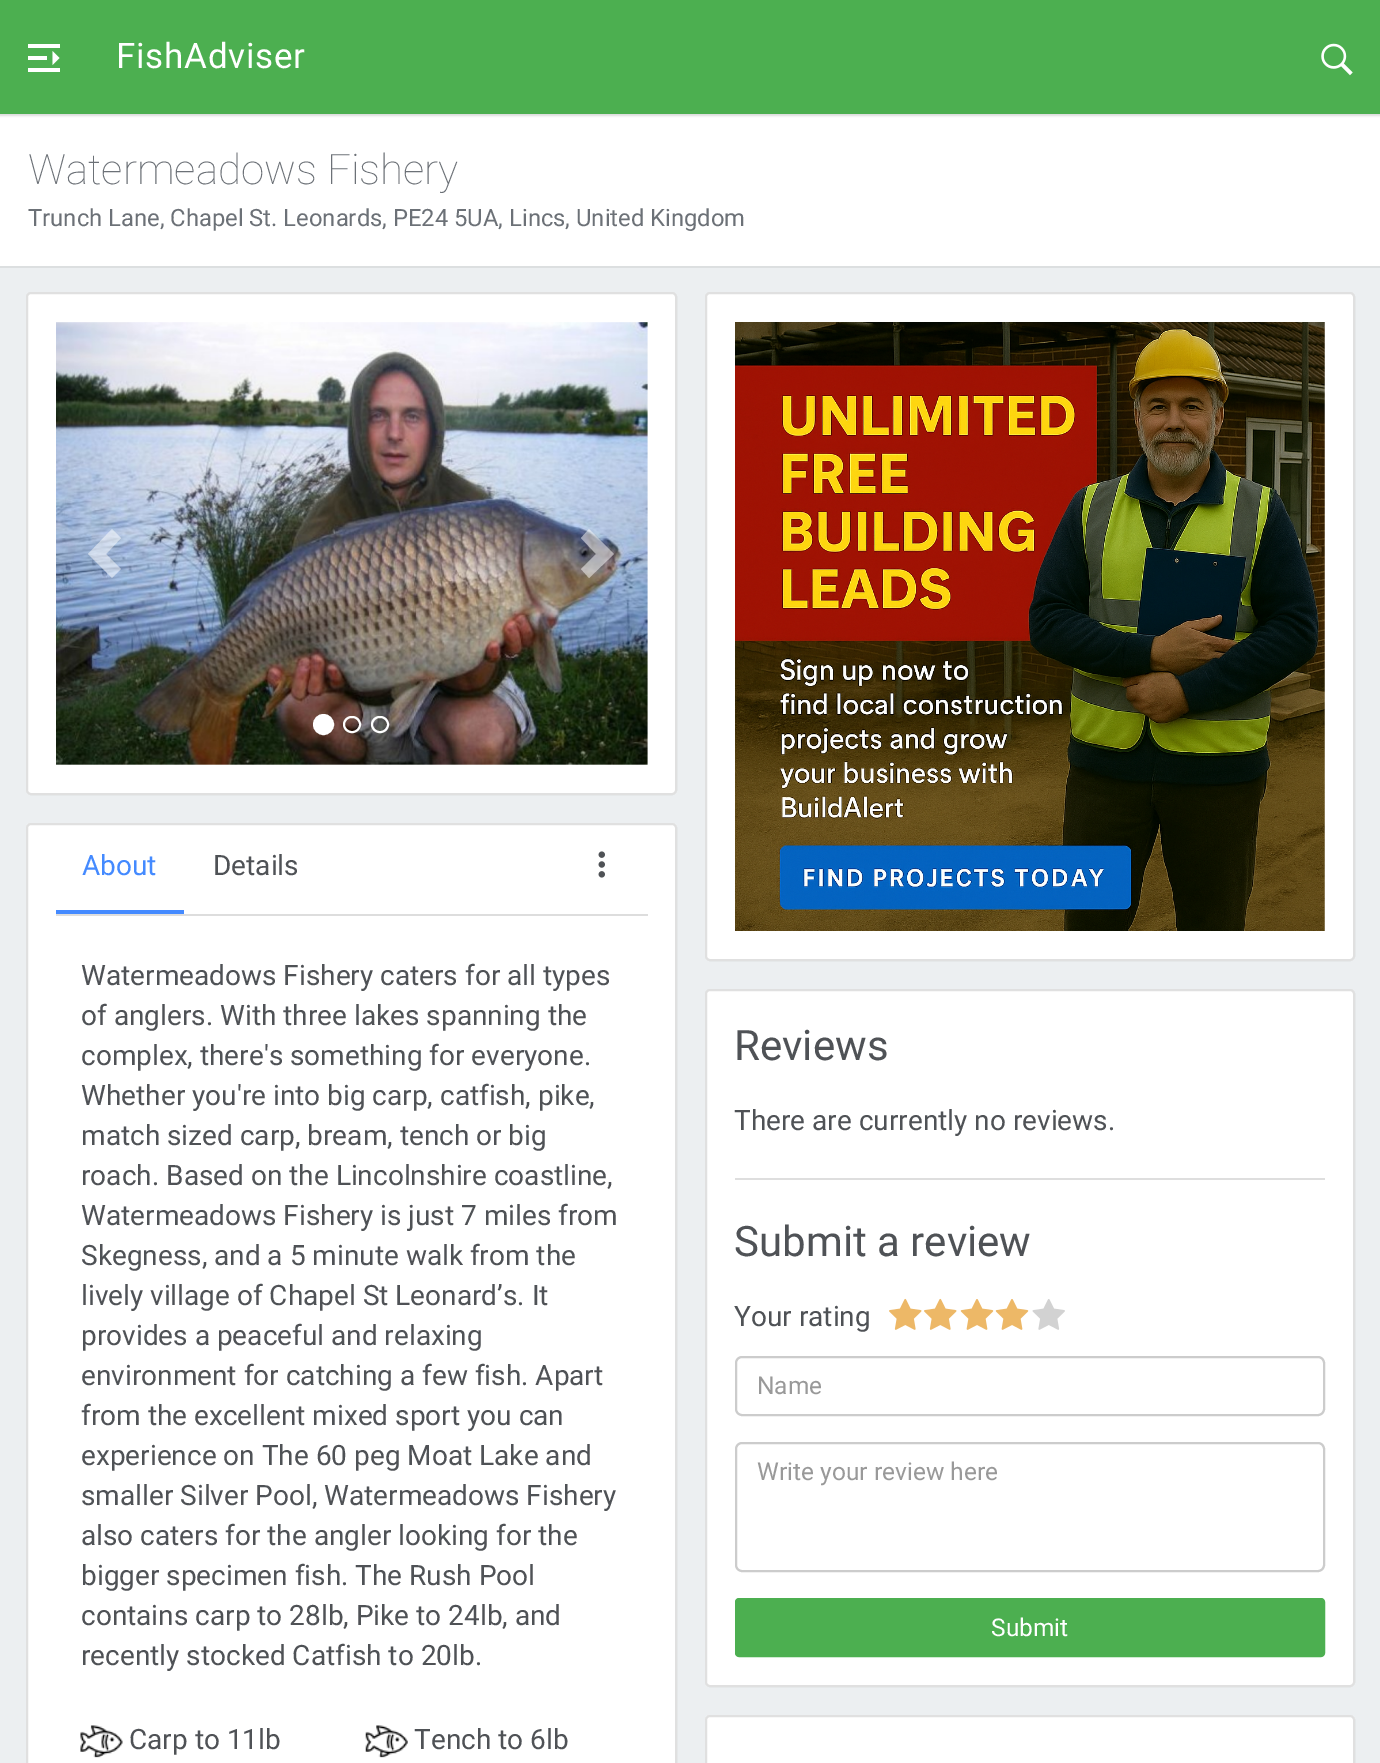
%!PS
<< /PageSize [1380 1763] /PageUsesTransparency true >> setpagedevice
/rgb { dup -16 bitshift 255 div exch dup -8 bitshift 255 and 255 div exch 255 and 255 div setrgbcolor } def
/font { [ exch dup neg 0 0 3 -1 roll 0 0 ] selectfont } def
/text { moveto show } def
/alpha { dup .setfillconstantalpha .setstrokeconstantalpha } def
/circle { newpath 0 360 arc closepath } def
/roundrect { 5 dict begin { /r /h /w /y /x } { exch def } forall
  x r add y moveto x w add y 2 copy h add r arct x w add y h add x 1 index r arct
  x y h add x y r arct x y 2 copy exch w add exch r arct closepath end } def
/shadow { 12 dict begin { /a /b /q /h /w /y /x } { exch def } forall gsave /was 0 def
  9 -2 -9 { dup b mul 4 div /e exch def 1 sub .425 mul 2.718 exch exp 1 add a .99 .min exch div /now exch def
    1 1 now sub 1 was sub div sub alpha /was now def
    w h .min e 2 mul add 0 gt { x e sub y e sub w e 2 mul add h e 2 mul add
      q e add b .6 mul add w h .min 2 div e add .min 0 .max roundrect fill } if } for grestore end } def
/picture { 5 dict begin { /h /w /y /x /name } { exch def } forall
  gsave x y translate w h scale
  w h 8 [w 0 0 h 0 0] name (r) file false 3 colorimage grestore end } def
0 .pushpdf14devicefilter
0 1763 translate 1 -1 scale
4 setmiterlimit
/s1 { /Roboto-Thin 42 font 16#6C7177 rgb } def
/s2 { /Roboto-Regular 23.8 font 16#6C7177 rgb } def
/s3 { /Roboto-Regular 28 font 16#448AFF rgb } def
/s4 { /Roboto-Regular 28 font 16#4F5256 rgb } def
/s5 { /Roboto-Regular 42 font 16#4F5256 rgb } def
/s6 { /Roboto-Regular 24.5 font 16#999999 rgb } def
/s7 { /Roboto-Regular 24.5 font 16#FFFFFF rgb } def
16#ECEFF1 rgb
0 0 1380 1763 rectfill
16#4CAF50 rgb
0 0 1380 114 rectfill
16#FFFFFF rgb
0 114 1380 152 rectfill
gsave
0 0 moveto 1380 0 lineto 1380 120 lineto 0 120 lineto closepath 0 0 moveto 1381 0 lineto 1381 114 lineto 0 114 lineto closepath eoclip newpath
16#000000 rgb
-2 -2 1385 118 0 1 0.14 shadow
grestore
28 44 32 4 rectfill
28 56 19 4 rectfill
52.5 65 moveto 52.5 51 lineto 59.5 58 lineto closepath fill
28 68 32 4 rectfill
/Roboto-Regular 35 font
116 68 moveto 0.75 0 (FishAdviser) ashow
(pic1.raw) 1321 43 32 33 picture
16#DCDFE0 rgb
0 266 moveto 0 268 lineto 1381 268 lineto 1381 116 lineto 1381 266 lineto closepath fill
s1
(Watermeadows Fishery) 28 184 text
s2
(Trunch Lane, Chapel St. Leonards, PE24 5UA, Lincs, United Kingdom) 28 226 text
16#FFFFFF rgb
26 292 651 503 5 roundrect fill
0.12 alpha
16#000000 rgb
2 setlinewidth
27 293 649 501 4 roundrect stroke
1 alpha
(pic2.raw) 56 322 592 443 picture
0.5 alpha
16#FFFFFF rgb
121 538 moveto 106 554 lineto 121 569 lineto 112 578 lineto 88 554 lineto 112 529 lineto closepath fill
614 554 moveto 589 578 lineto 581 569 lineto 596 554 lineto 581 538 lineto 589 529 lineto closepath fill
1 alpha
323.5 724.5 9.5 circle gsave fill grestore
stroke
344 717 16 15 7.5 roundrect stroke
372 717 16 15 7.5 roundrect stroke
31 823 moveto 672 823 lineto 675 823 677 825 677 828 curveto 677 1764 lineto 26 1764 lineto 26 828 lineto 26 825 28 823 31 823 curveto closepath fill
0.12 alpha
16#000000 rgb
27 824 649 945 4 roundrect stroke
1 alpha
16#DDDDDD rgb
56 914 592 2 rectfill
16#448AFF rgb
56 910 128 4 rectfill
s3
(About) 82 875 text
s4
(Details) 213 875 text
(pic3.raw) 598 851 7 27 picture
(Watermeadows Fishery caters for all types) 81 985 text
(of anglers. With three lakes spanning the) 81 1025 text
(complex, there's something for everyone.) 81 1065 text
(Whether you're into big carp, catfish, pike,) 81 1105 text
(match sized carp, bream, tench or big) 81 1145 text
(roach. Based on the Lincolnshire coastline,) 81 1185 text
(Watermeadows Fishery is just 7 miles from) 81 1225 text
(Skegness, and a 5 minute walk from the) 81 1265 text
(lively village of Chapel St Leonard’s. It) 81 1305 text
(provides a peaceful and relaxing) 81 1345 text
(environment for catching a few fish. Apart) 81 1385 text
(from the excellent mixed sport you can) 81 1425 text
(experience on The 60 peg Moat Lake and) 81 1465 text
(smaller Silver Pool, Watermeadows Fishery) 81 1505 text
(also caters for the angler looking for the) 81 1545 text
(bigger specimen fish. The Rush Pool) 81 1585 text
(contains carp to 28lb, Pike to 24lb, and) 81 1625 text
(recently stocked Catfish to 20lb.) 81 1665 text
(pic4.raw) 80 1725 43 33 picture
(Carp to 11lb) 129 1749 text
(pic5.raw) 365 1725 43 33 picture
(Tench to 6lb) 414 1749 text
16#FFFFFF rgb
705 292 650 669 5 roundrect fill
0.12 alpha
16#000000 rgb
706 293 648 667 4 roundrect stroke
1 alpha
(pic6.raw) 735 322 590 609 picture
16#FFFFFF rgb
705 989 650 698 5 roundrect fill
0.12 alpha
16#000000 rgb
706 990 648 696 4 roundrect stroke
1 alpha
s5
(Reviews) 734 1060 text
s4
(There are currently no reviews.) 734 1130 text
16#DEDEDE rgb
735 1178 590 2 rectfill
s5
(Submit a review) 734 1256 text
s4
(Your rating) 734 1326 text
(pic7.raw) 889 1298 33 32 picture
(pic7.raw) 924 1298 33 32 picture
(pic8.raw) 960 1299 34 31 picture
(pic8.raw) 995 1299 34 31 picture
(pic9.raw) 1032 1299 33 31 picture
16#CCCCCC rgb
736 1357 588 58 6 roundrect stroke
s6
(Name) 757 1394 text
16#CCCCCC rgb
736 1443 588 128 6 roundrect stroke
s6
(Write your review here) 757 1480 text
16#4CAF50 rgb
736 1599 588 57 3 roundrect gsave fill grestore
stroke
s7
(Submit) 991 1636 text
710 1715 moveto 1350 1715 lineto 1353 1715 1355 1717 1355 1720 curveto 1355 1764 lineto 705 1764 lineto 705 1720 lineto 705 1717 707 1715 710 1715 curveto closepath fill
0.12 alpha
16#000000 rgb
706 1716 648 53 4 roundrect stroke
.poppdf14devicefilter showpage
